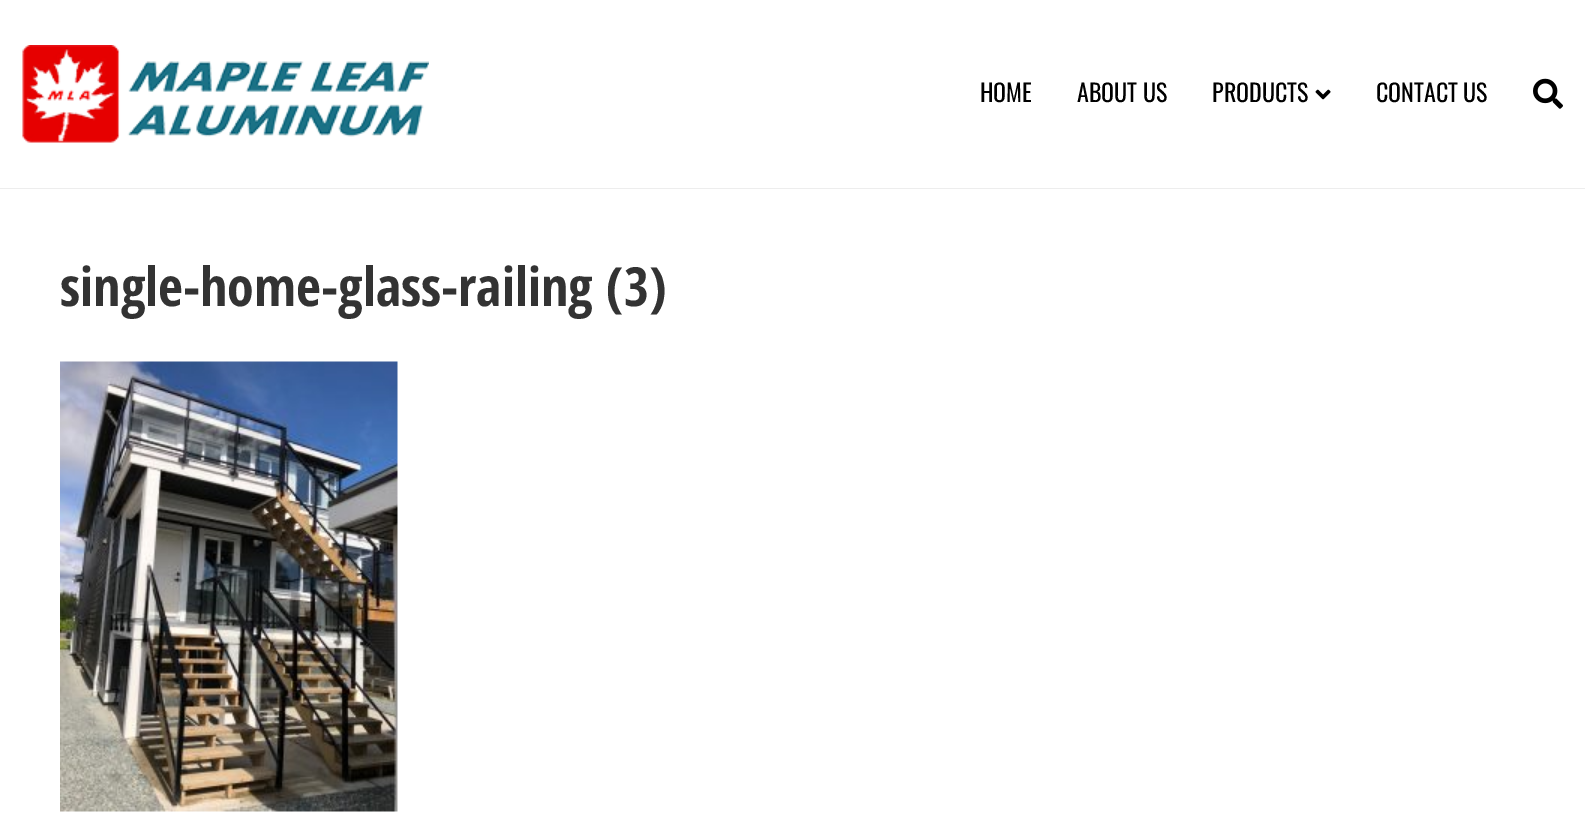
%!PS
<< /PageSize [1585 832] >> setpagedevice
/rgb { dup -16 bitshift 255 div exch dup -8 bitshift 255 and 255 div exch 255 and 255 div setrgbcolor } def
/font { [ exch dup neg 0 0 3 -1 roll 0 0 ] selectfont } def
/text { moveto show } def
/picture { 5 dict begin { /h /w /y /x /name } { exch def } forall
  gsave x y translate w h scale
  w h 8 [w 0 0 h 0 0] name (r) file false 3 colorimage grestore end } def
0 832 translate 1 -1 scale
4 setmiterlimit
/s1 { /Oswald-Regular 24 font 16#000000 rgb } def
/s2 { /OpenSansCondensed-Bold 54 font 16#333333 rgb } def
16#FFFFFF rgb
0 0 1585 832 rectfill
16#EDEDED rgb
0 188 1585 1 rectfill
(pic1.raw) 22 45 407 98 picture
s1
(HOME) 980 102 text
(ABOUT US) 1077 102 text
(PRODUCTS) 1212 102 text
(pic2.raw) 1315 89 16 11 picture
(CONTACT US) 1376 102 text
(pic3.raw) 1533 78 30 31 picture
s2
(single-home-glass-railing \(3\)) 60 306 text
(pic4.raw) 60 361 338 451 picture
showpage
